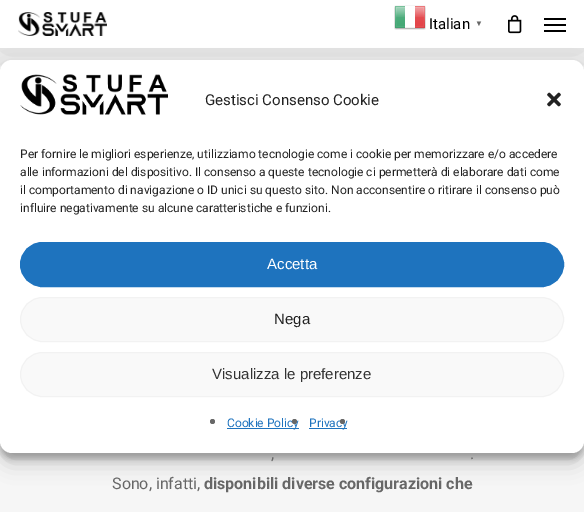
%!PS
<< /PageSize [584 512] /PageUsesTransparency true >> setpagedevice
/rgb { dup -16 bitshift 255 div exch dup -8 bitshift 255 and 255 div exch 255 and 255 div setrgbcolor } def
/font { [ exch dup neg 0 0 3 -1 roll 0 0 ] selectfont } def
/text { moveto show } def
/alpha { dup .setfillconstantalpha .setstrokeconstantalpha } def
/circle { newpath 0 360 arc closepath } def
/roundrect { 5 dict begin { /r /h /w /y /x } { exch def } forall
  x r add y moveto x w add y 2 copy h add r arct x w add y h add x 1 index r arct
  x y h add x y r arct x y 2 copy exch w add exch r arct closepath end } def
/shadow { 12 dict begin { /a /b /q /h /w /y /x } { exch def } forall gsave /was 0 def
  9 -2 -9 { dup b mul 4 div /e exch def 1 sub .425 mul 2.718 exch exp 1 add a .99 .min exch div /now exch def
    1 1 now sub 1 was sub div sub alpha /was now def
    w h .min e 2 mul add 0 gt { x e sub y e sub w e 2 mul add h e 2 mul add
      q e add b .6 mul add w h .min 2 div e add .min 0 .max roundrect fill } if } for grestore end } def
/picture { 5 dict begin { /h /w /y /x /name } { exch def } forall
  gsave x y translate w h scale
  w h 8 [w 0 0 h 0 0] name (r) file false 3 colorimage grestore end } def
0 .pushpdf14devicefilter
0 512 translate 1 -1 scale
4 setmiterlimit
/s1 { /Roboto-Regular 15 font 16#000000 rgb } def
/s2 { /LiberationSerif-Bold 8 font 16#676767 rgb } def
/s3 { /Roboto-Regular 15 font 16#222222 rgb } def
/s4 { /Roboto-Regular 12 font 16#222222 rgb } def
/s5 { /LiberationSans-Regular 15 font 16#FFFFFF rgb } def
/s6 { /LiberationSans-Regular 15 font 16#222222 rgb } def
/s7 { /LiberationSans-Regular 15 font 16#333333 rgb } def
/s8 { /Roboto-Regular 12 font 16#1E73BE rgb } def
/s9 { /Roboto-Regular 16 font 16#676767 rgb } def
/s10 { /Roboto-Bold 16 font 16#676767 rgb } def
16#FFFFFF rgb
0 0 584 512 rectfill
16#F6F6F6 rgb
0 48 584 464 rectfill
gsave
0 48 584 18 rectclip
16#000000 rgb
0 3 584 48 0 22.5 0.15 shadow
grestore
(pic1.raw) 18 12 89 24 picture
(pic2.raw) 394 5 32 25 picture
s1
(Italian) 429 29 text
s2
(▼) 475 26 text
(pic3.raw) 508 15 14 19 picture
16#000000 rgb
544 18 22 2 rectfill
544 30 22 2 rectfill
544 24 22 2 rectfill
0 66 584 393 12 3 0.23 shadow
0 70 584 393 12 10 0.19 shadow
16#FFFFFF rgb
0 60 584 393 12 roundrect fill
(pic4.raw) 20 74 148 41 picture
s3
(Gestisci Consenso Cookie) 205 105 text
(pic5.raw) 547 92 14 15 picture
s4
(Per fornire le migliori esperienze, utilizziamo tecnologie come i cookie per memorizzare e/o accedere) 20 158 text
(alle informazioni del dispositivo. Il consenso a queste tecnologie ci permetterà di elaborare dati come) 20 176 text
(il comportamento di navigazione o ID unici su questo sito. Non acconsentire o ritirare il consenso può) 20 194 text
(influire negativamente su alcune caratteristiche e funzioni.) 20 212 text
16#1E73BE rgb
20.5 242.5 543 44 22 roundrect gsave fill grestore
stroke
s5
(Accetta) 267 269 text
16#F9F9F9 rgb
20.5 297.5 543 44 22 roundrect gsave fill grestore
16#F2F2F2 rgb
stroke
s6
(Nega) 274 324 text
16#F9F9F9 rgb
20.5 352.5 543 44 22 roundrect gsave fill grestore
16#F2F2F2 rgb
stroke
s7
(Visualizza le preferenze) 212 379 text
16#676767 rgb
212.5 421.5 2.5 circle fill
16#1E73BE rgb
227 428 72 1 rectfill
s8
(Cookie Policy) 227 427 text
16#676767 rgb
294.5 421.5 2.5 circle fill
16#1E73BE rgb
309 428 38 1 rectfill
(Privacy) 309 427 text
16#676767 rgb
342.5 421.5 2.5 circle fill
s9
(,) 271 459 text
(.) 470 459 text
(Sono, infatti,) 112 489 text
s10
(disponibili diverse configurazioni che) 204 489 text
.poppdf14devicefilter showpage
